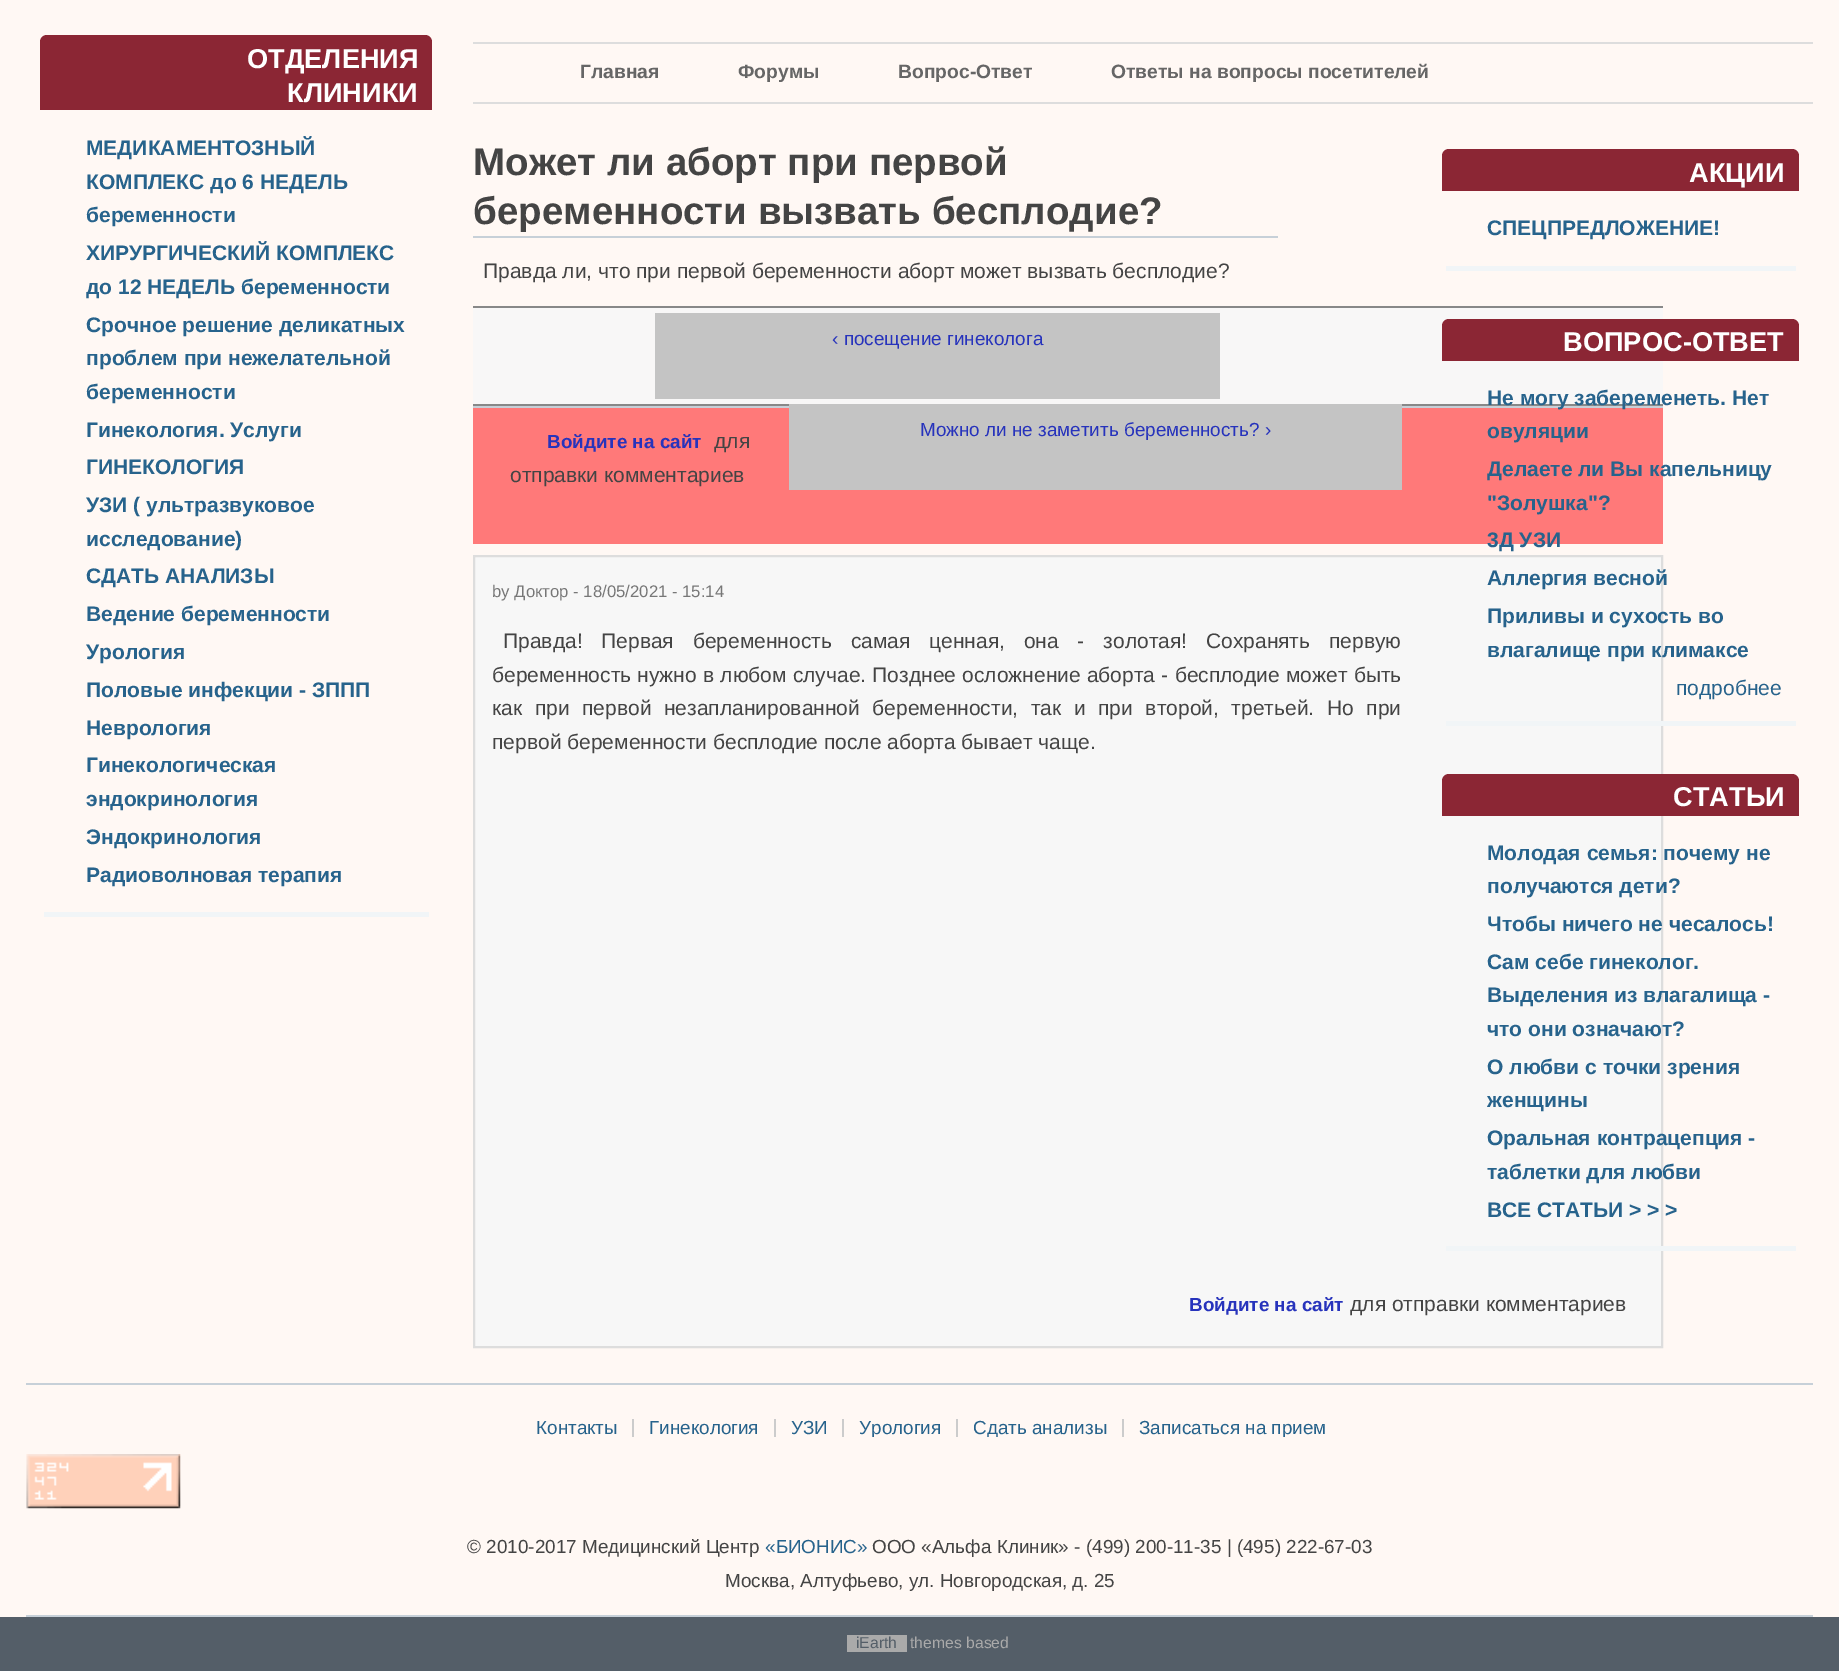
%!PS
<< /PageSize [1839 1671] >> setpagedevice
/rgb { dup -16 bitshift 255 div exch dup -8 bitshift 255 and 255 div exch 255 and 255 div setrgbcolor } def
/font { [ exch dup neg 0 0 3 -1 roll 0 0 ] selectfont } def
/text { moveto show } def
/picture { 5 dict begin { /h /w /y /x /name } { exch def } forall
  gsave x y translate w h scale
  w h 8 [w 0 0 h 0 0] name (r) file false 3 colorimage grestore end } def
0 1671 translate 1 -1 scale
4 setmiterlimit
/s1 { /LiberationSans-Bold 27.25 font 16#FFFFFF rgb } def
/s2 { /LiberationSans-Bold 21 font 16#27638C rgb } def
/s3 { /LiberationSans-Bold 19.25 font 16#666666 rgb } def
/s4 { /LiberationSans-Bold 38.5 font 16#444444 rgb } def
/s5 { /LiberationSans-Regular 21 font 16#444444 rgb } def
/s6 { /LiberationSans-Regular 18.9 font 16#2733BC rgb } def
/s7 { /LiberationSans-Bold 18.9 font 16#2733BC rgb } def
/s8 { /LiberationSans-Regular 16.75 font 16#777777 rgb } def
/s9 { /LiberationSans-Regular 21 font 16#27638C rgb } def
/s10 { /LiberationSans-Regular 18.9 font 16#27638C rgb } def
/s11 { /LiberationSans-Regular 18.9 font 16#444444 rgb } def
/s12 { /LiberationSans-Regular 15.75 font 16#545E68 rgb } def
/s13 { /LiberationSans-Regular 15.75 font 16#AAAAAA rgb } def
16#FFF8F4 rgb
0 0 1839 1671 rectfill
16#8B2634 rgb
47 35 moveto 425 35 lineto 429 35 432 38 432 42 curveto 432 110 lineto 40 110 lineto 40 42 lineto 40 38 43 35 47 35 curveto closepath fill
s1
(ОТДЕЛЕНИЯ) 247 68 text
(КЛИНИКИ) 287 102 text
16#F1F5F7 rgb
44 912 385 5 rectfill
s2
(МЕДИКАМЕНТОЗНЫЙ) 86 155 text
(КОМПЛЕКС до 6 НЕДЕЛЬ) 86 189 text
(беременности) 86 222 text
(ХИРУРГИЧЕСКИЙ КОМПЛЕКС) 86 260 text
(до 12 НЕДЕЛЬ беременности) 86 294 text
(Срочное решение деликатных) 86 332 text
(проблем при нежелательной) 86 365 text
(беременности) 86 399 text
(Гинекология. Услуги) 86 437 text
(ГИНЕКОЛОГИЯ) 86 474 text
(УЗИ \( ультразвуковое) 86 512 text
(исследование\)) 86 546 text
(СДАТЬ АНАЛИЗЫ) 86 583 text
(Ведение беременности) 86 621 text
(Урология) 86 659 text
(Половые инфекции - ЗППП) 86 697 text
(Неврология) 86 735 text
(Гинекологическая) 86 772 text
(эндокринология) 86 806 text
(Эндокринология) 86 844 text
(Радиоволновая терапия) 86 882 text
16#DDDDDD rgb
473 42 1340 2 rectfill
473 102 1340 2 rectfill
s3
(Главная) 580 78 text
(Форумы) 738 78 text
(Вопрос-Ответ) 898 78 text
(Ответы на вопросы посетителей) 1111 78 text
16#C7D0D8 rgb
473 236 805 2 rectfill
s4
(Может ли аборт при первой) 473 175 text
(беременности вызвать бесплодие?) 473 224 text
16#C7D0D8 rgb
473 406 1190 2 rectfill
s5
(Правда ли, что при первой беременности аборт может вызвать бесплодие?) 483 278 text
16#F8F7F7 rgb
473 308 1190 96 rectfill
16#888888 rgb
473 306 1190 2 rectfill
473 404 1190 2 rectfill
16#C4C4C4 rgb
655 313 565 86 rectfill
s6
(‹ посещение гинеколога) 832 345 text
16#FF7979 rgb
473 408 1190 136 rectfill
16#C4C4C4 rgb
789 404 613 86 rectfill
s6
(Можно ли не заметить беременность? ›) 920 436 text
s7
(Войдите на сайт) 547 448 text
s5
(для) 714 448 text
(отправки комментариев) 510 482 text
16#F7F7F7 rgb
474 556 moveto 1662 556 lineto 1662 1347 lineto 474 1347 lineto closepath gsave fill grestore
16#DDDDDD rgb
2 setlinewidth
stroke
s8
(by Доктор - 18/05/2021 - 15:14) 492 597 text
/LiberationSans-Regular 21 font
16#444444 rgb
503 648 moveto 13 0 32 (Правда! Первая беременность самая ценная, она - золотая! Сохранять первую) widthshow
492 682 moveto 0.4 0 32 (беременность нужно в любом случае. Позднее осложнение аборта - бесплодие может быть) widthshow
492 715 moveto 6.75 0 32 (как при первой незапланированной беременности, так и при второй, третьей. Но при) widthshow
(первой беременности бесплодие после аборта бывает чаще.) 492 749 text
s7
(Войдите на сайт) 1189 1311 text
s5
(для отправки комментариев) 1350 1311 text
16#8B2634 rgb
1449 149 moveto 1792 149 lineto 1796 149 1799 152 1799 156 curveto 1799 191 lineto 1442 191 lineto 1442 156 lineto 1442 152 1445 149 1449 149 curveto closepath fill
s1
(АКЦИИ) 1689 182 text
16#F1F5F7 rgb
1446 266 350 5 rectfill
s2
(СПЕЦПРЕДЛОЖЕНИЕ!) 1487 235 text
16#8B2634 rgb
1449 319 moveto 1792 319 lineto 1796 319 1799 322 1799 326 curveto 1799 361 lineto 1442 361 lineto 1442 326 lineto 1442 322 1445 319 1449 319 curveto closepath fill
s1
(ВОПРОС-ОТВЕТ) 1563 351 text
16#F1F5F7 rgb
1446 721 350 5 rectfill
s2
(Не могу забеременеть. Нет) 1487 405 text
(овуляции) 1487 438 text
(Делаете ли Вы капельницу) 1487 476 text
("Золушка"?) 1487 510 text
(3Д УЗИ) 1487 547 text
(Аллергия весной) 1487 585 text
(Приливы и сухость во) 1487 623 text
(влагалище при климаксе) 1487 657 text
s9
(подробнее) 1676 695 text
16#8B2634 rgb
1449 774 moveto 1792 774 lineto 1796 774 1799 777 1799 781 curveto 1799 816 lineto 1442 816 lineto 1442 781 lineto 1442 777 1445 774 1449 774 curveto closepath fill
s1
(СТАТЬИ) 1673 806 text
16#F1F5F7 rgb
1446 1246 350 5 rectfill
s2
(Молодая семья: почему не) 1487 860 text
(получаются дети?) 1487 893 text
(Чтобы ничего не чесалось!) 1487 931 text
(Сам себе гинеколог.) 1487 969 text
(Выделения из влагалища -) 1487 1002 text
(что они означают?) 1487 1036 text
(О любви с точки зрения) 1487 1074 text
(женщины) 1487 1107 text
(Оральная контрацепция -) 1487 1145 text
(таблетки для любви) 1487 1179 text
(ВСЕ СТАТЬИ > > >) 1487 1217 text
16#C7D0D8 rgb
26 1383 1787 2 rectfill
26 1615 1787 2 rectfill
s10
(Контакты) 536 1434 text
16#CCCCCC rgb
632 1419 2 18 rectfill
s10
(Гинекология) 649 1434 text
16#CCCCCC rgb
774 1419 2 18 rectfill
s10
(УЗИ) 791 1434 text
16#CCCCCC rgb
842 1419 2 18 rectfill
gsave
26 1419 1787 18 rectclip
s10
(Урология) 859 1434 text
(Сдать анализы) 973 1434 text
grestore
956 1419 2 18 rectfill
gsave
26 1419 1787 18 rectclip
s10
(Записаться на прием) 1139 1434 text
grestore
1122 1419 2 18 rectfill
(pic1.raw) 26 1454 155 55 picture
s11
(© 2010-2017 Медицинский Центр) 467 1553 text
s10
(«БИОНИС») 765 1553 text
s11
(ООО «Альфа Клиник» - \(499\) 200-11-35 | \(495\) 222-67-03) 872 1553 text
(Москва, Алтуфьево, ул. Новгородская, д. 25) 725 1587 text
16#545E68 rgb
0 1617 1839 54 rectfill
16#AAAAAA rgb
847 1635 60 17 rectfill
s12
(iEarth) 856 1648 text
s13
(themes based) 910 1648 text
showpage
